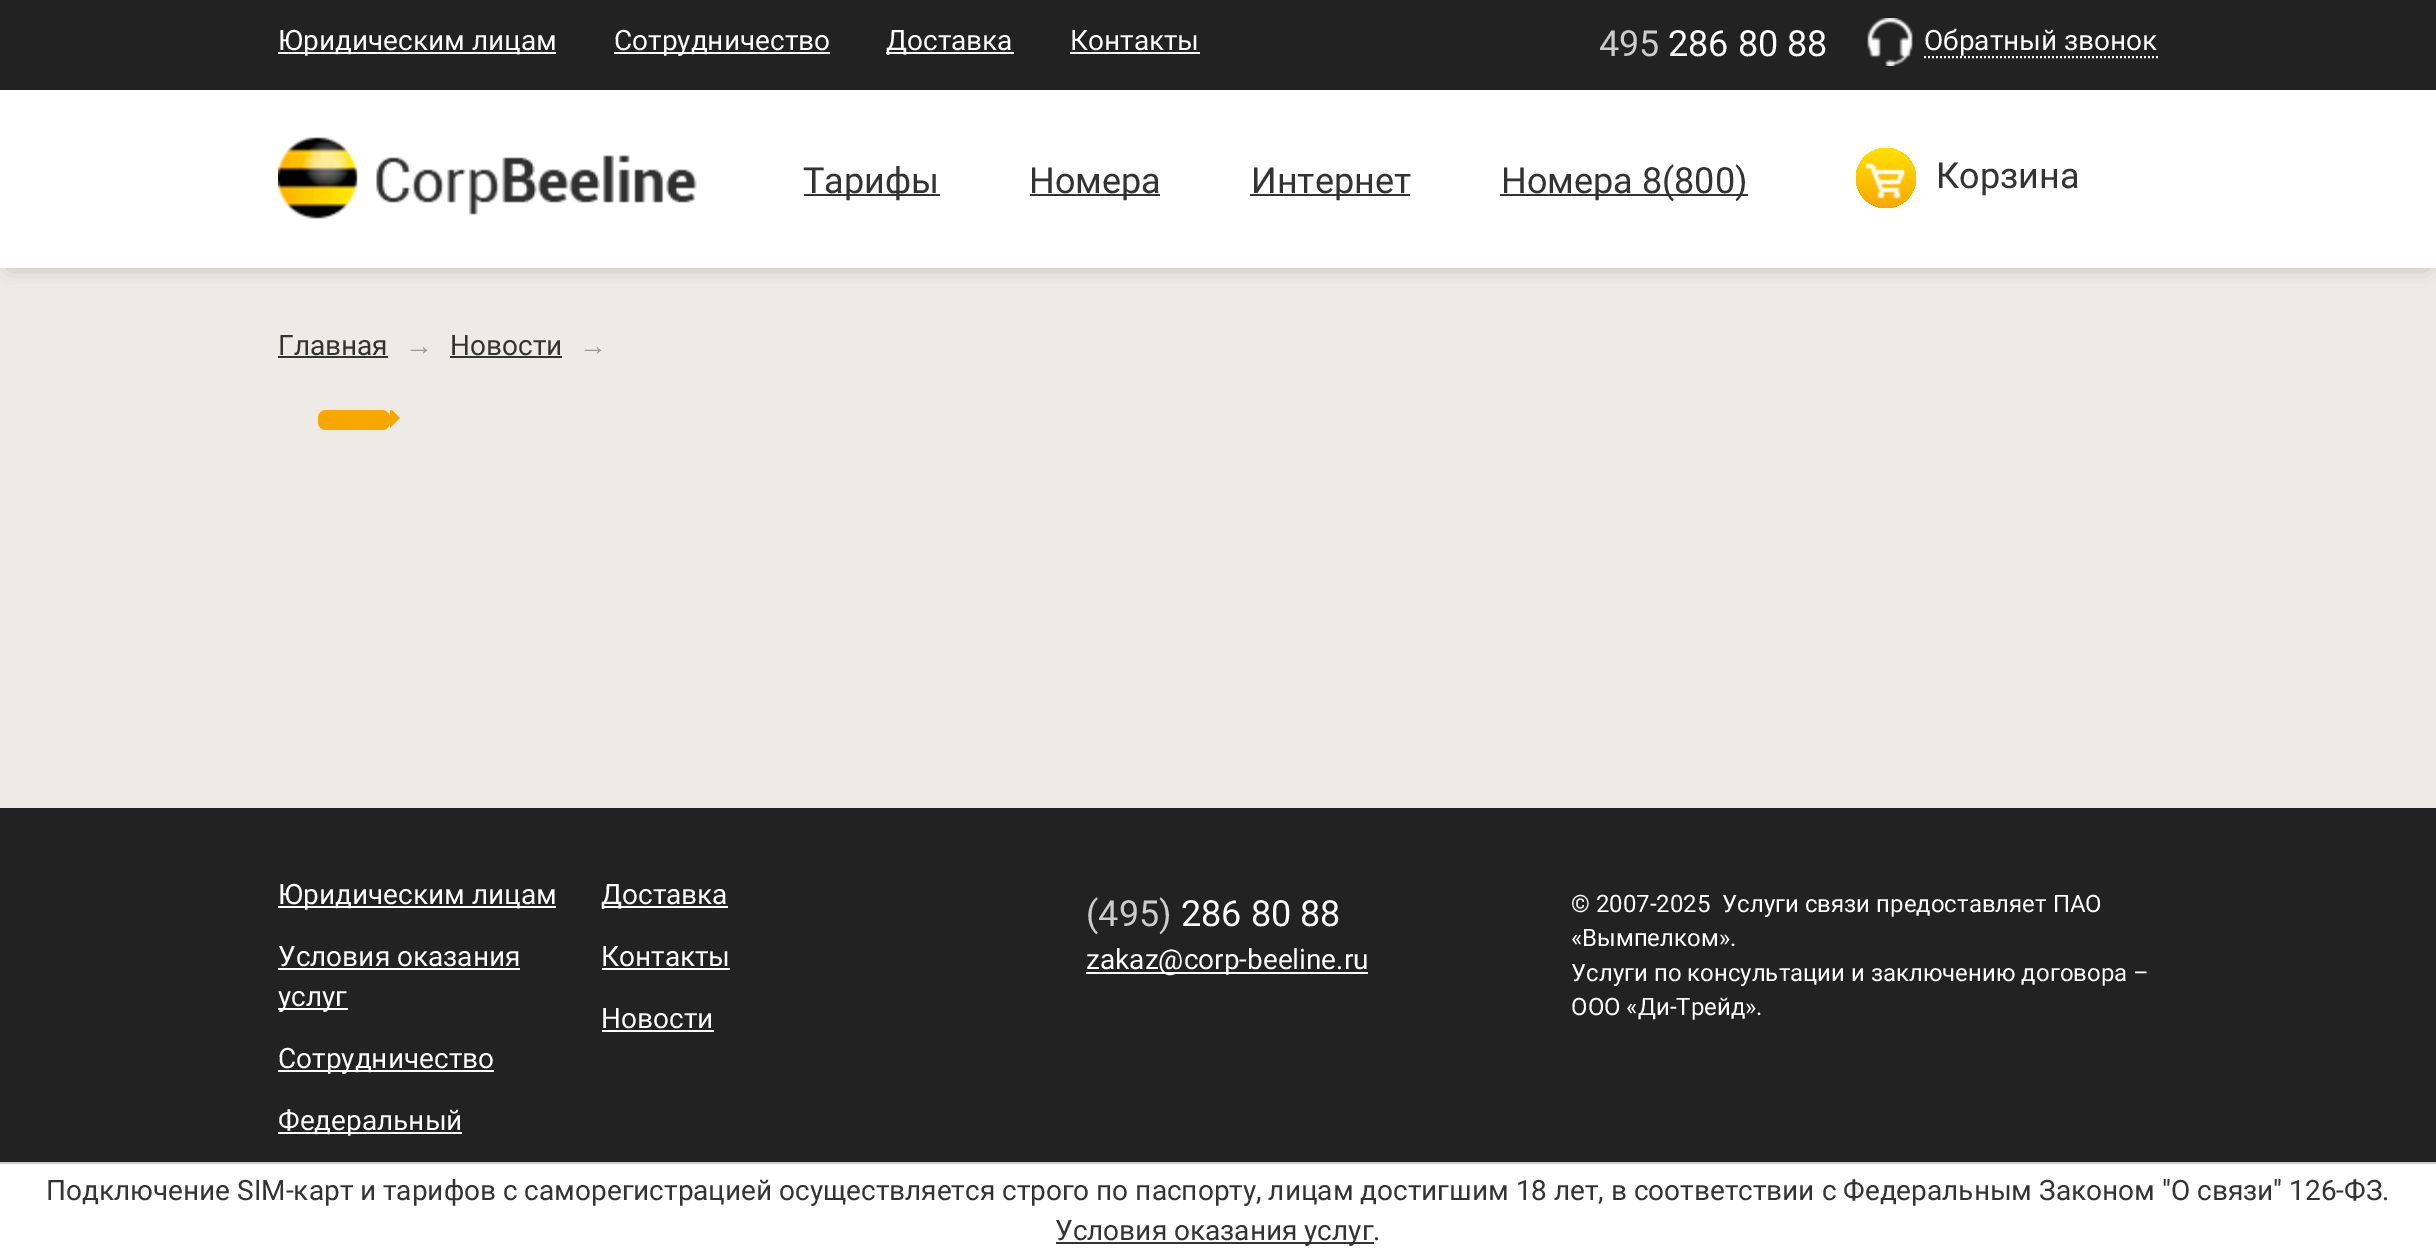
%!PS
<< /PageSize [2436 1256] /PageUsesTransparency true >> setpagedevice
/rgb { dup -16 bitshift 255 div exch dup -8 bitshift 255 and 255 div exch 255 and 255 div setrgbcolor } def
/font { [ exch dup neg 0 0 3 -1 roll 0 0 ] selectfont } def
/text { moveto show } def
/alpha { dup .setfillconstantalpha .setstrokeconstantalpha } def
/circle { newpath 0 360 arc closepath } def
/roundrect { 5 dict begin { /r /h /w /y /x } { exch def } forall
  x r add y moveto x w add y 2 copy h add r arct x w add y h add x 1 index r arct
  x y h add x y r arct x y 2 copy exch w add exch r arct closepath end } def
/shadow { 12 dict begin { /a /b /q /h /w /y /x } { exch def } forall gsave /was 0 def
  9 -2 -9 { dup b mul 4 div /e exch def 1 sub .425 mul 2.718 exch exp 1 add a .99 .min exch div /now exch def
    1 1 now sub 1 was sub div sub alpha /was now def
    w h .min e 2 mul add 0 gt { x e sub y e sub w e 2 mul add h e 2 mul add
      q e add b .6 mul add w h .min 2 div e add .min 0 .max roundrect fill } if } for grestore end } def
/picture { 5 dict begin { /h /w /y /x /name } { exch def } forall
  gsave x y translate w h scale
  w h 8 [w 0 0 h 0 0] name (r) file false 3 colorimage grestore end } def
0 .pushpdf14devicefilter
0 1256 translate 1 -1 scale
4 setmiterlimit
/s1 { /Roboto-Regular 28 font 16#FFFFFF rgb } def
/s2 { /Roboto-Regular 36 font 16#CCCCCC rgb } def
/s3 { /Roboto-Regular 36 font 16#FFFFFF rgb } def
/s4 { /Roboto-Regular 36 font 16#333333 rgb } def
/s5 { /Roboto-Regular 28 font 16#333333 rgb } def
/s6 { /LiberationSans-Regular 28 font 16#999999 rgb } def
/s7 { /Roboto-Regular 24 font 16#FFFFFF rgb } def
16#EEEAE5 rgb
0 0 2436 1256 rectfill
16#222222 rgb
0 0 2436 90 rectfill
16#FFFFFF rgb
278 52 278 2 rectfill
s1
(Юридическим лицам) 278 50 text
614 52 216 2 rectfill
(Сотрудничество) 614 50 text
886 52 128 2 rectfill
(Доставка) 886 50 text
(Контакты) 1070 50 text
1070 52 130 2 rectfill
s2
(495) 1599 56 text
s3
(286 80 88) 1668 56 text
(pic1.raw) 1867 18 46 48 picture
s1
(Обратный звонок) 1924 50 text
2 setlinewidth
[2 2] 0 setdash
1924 57 moveto 2158 57 lineto stroke
16#282828 rgb
10 108 2416 158 0 10 0.3 shadow
16#FFFFFF rgb
0 90 2436 178 rectfill
(pic2.raw) 278 137 419 82 picture
16#333333 rgb
804 194 136 2 rectfill
s4
(Тарифы) 803 193 text
1030 194 130 2 rectfill
(Номера) 1029 193 text
1250 194 160 2 rectfill
(Интернет) 1251 193 text
1500 194 248 2 rectfill
(Номера 8\(800\)) 1501 193 text
gsave 1886 178 30 circle clip newpath
<< /ShadingType 2 /ColorSpace /DeviceRGB /Coords [1886 148 1886 208] /Extend [true true] /Function << /FunctionType 2 /Domain [0 1] /C0 [1 0.882 0] /C1 [0.969 0.655 0] /N 1 >> >> shfill grestore
(pic3.raw) 1865 163 41 36 picture
(Корзина) 1936 188 text
s5
(Главная) 278 355 text
278 356 110 2 rectfill
s6
(→) 405 355 text
s5
(Новости) 450 355 text
450 356 112 2 rectfill
s6
(→) 579 355 text
16#F7A700 rgb
318 410 72 20 8 roundrect fill
gsave
318 410 1800 40 rectclip
390 428 moveto 390 408 lineto 400 418 lineto closepath fill
grestore
16#222222 rgb
0 808 2436 354 rectfill
16#FFFFFF rgb
278 906 278 2 rectfill
s1
(Юридическим лицам) 278 904 text
(Условия оказания) 278 966 text
278 968 242 2 rectfill
278 1008 70 2 rectfill
(услуг) 278 1006 text
278 1070 216 2 rectfill
(Сотрудничество) 278 1068 text
278 1132 184 2 rectfill
(Федеральный) 278 1130 text
602 906 126 2 rectfill
(Доставка) 601 904 text
(Контакты) 601 966 text
602 968 128 2 rectfill
(Новости) 601 1028 text
602 1030 112 2 rectfill
s2
(\(495\)) 1086 926 text
s3
(286 80 88) 1181 926 text
1086 972 282 2 rectfill
s1
(zakaz@corp-beeline.ru) 1086 969 text
s7
(© 2007-2025  Услуги связи предоставляет ПАО) 1571 912 text
(«Вымпелком».) 1571 946 text
(Услуги по консультации и заключению договора –) 1571 981 text
(ООО «Ди-Трейд».) 1571 1015 text
0 1164 2436 92 rectfill
16#CCCCCC rgb
0 1162 2436 2 rectfill
s5
(Подключение SIM-карт и тарифов с саморегистрацией осуществляется строго по паспорту, лицам достигшим 18 лет, в соответствии с Федеральным Законом "О связи" 126-ФЗ.) 46 1200 text
1056 1242 318 2 rectfill
(Условия оказания услуг.) 1055 1240 text
.poppdf14devicefilter showpage
